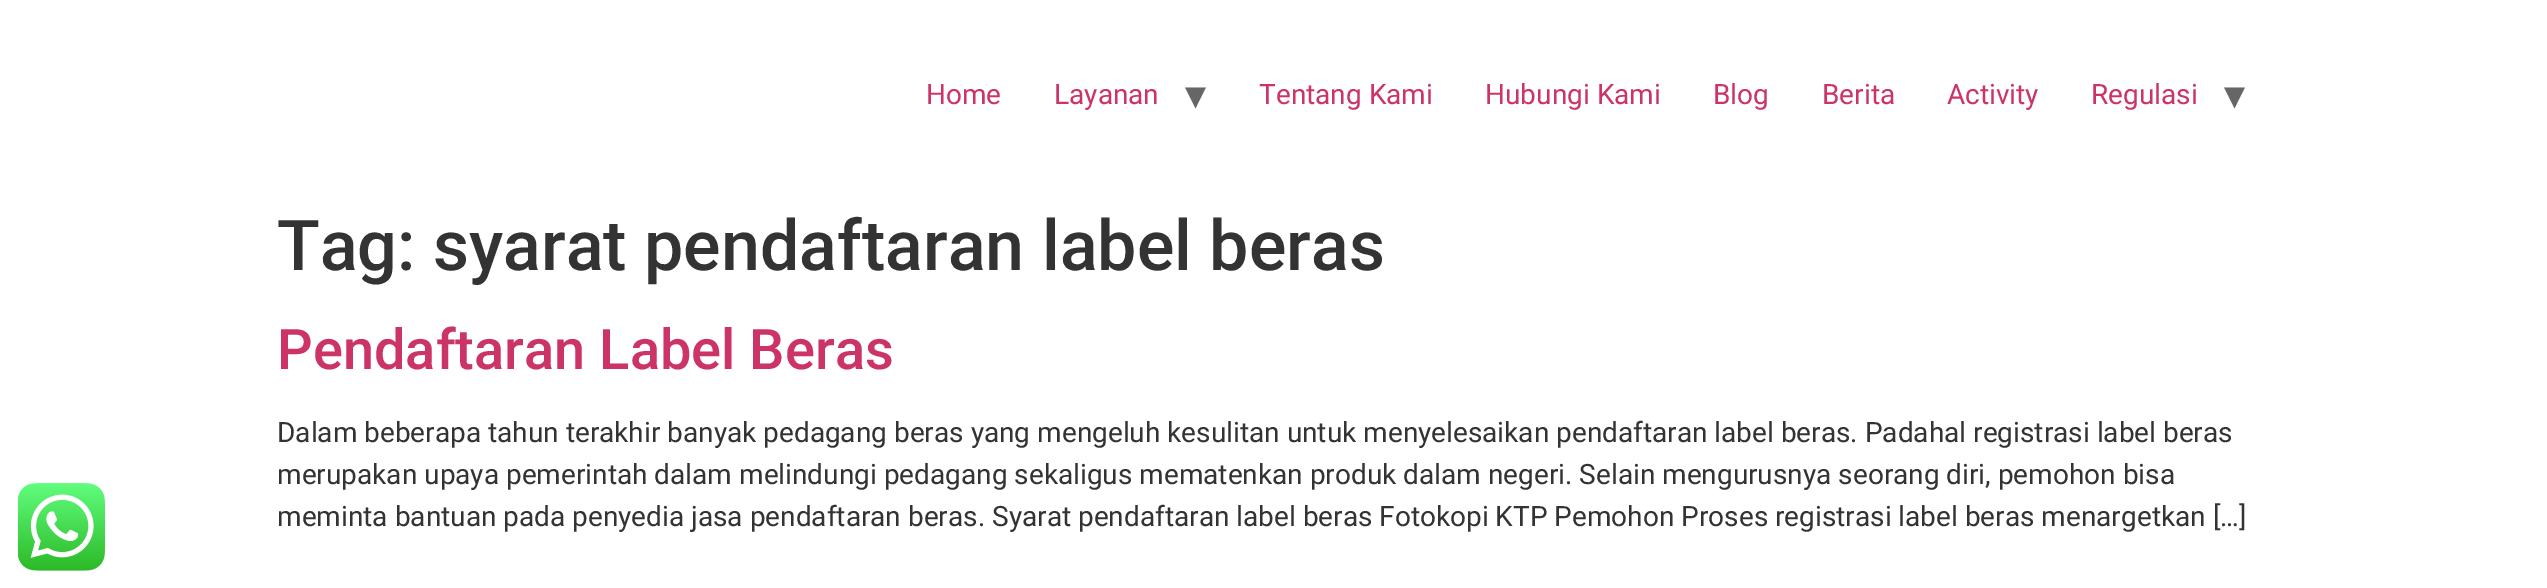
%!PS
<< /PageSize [2547 588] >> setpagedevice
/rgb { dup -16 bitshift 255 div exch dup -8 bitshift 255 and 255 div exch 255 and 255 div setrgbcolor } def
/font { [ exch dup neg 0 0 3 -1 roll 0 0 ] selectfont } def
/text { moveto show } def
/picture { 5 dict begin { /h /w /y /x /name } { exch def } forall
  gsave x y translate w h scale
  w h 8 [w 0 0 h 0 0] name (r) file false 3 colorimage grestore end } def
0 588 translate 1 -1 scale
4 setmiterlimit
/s1 { /Roboto-Regular 28 font 16#CC3366 rgb } def
/s2 { /DejaVuSans-Regular 42 font 16#666666 rgb } def
/s3 { /Roboto-Medium 70 font 16#333333 rgb } def
/s4 { /Roboto-Medium 56 font 16#CC3366 rgb } def
/s5 { /Roboto-Regular 28 font 16#333333 rgb } def
16#FFFFFF rgb
0 0 2547 588 rectfill
s1
(Home) 926 104 text
(Layanan) 1054 104 text
s2
(▾) 1185 109 text
s1
(Tentang Kami) 1259 104 text
(Hubungi Kami) 1485 104 text
(Blog) 1713 104 text
(Berita) 1822 104 text
(Activity) 1947 104 text
(Regulasi) 2091 104 text
s2
(▾) 2224 109 text
(pic1.raw) 18 483 87 88 picture
s3
(Tag: syarat pendaftaran label beras) 277 270 text
s4
(Pendaftaran Label Beras) 277 369 text
s5
(Dalam beberapa tahun terakhir banyak pedagang beras yang mengeluh kesulitan untuk menyelesaikan pendaftaran label beras. Padahal registrasi label beras) 277 442 text
(merupakan upaya pemerintah dalam melindungi pedagang sekaligus mematenkan produk dalam negeri. Selain mengurusnya seorang diri, pemohon bisa) 277 484 text
(meminta bantuan pada penyedia jasa pendaftaran beras. Syarat pendaftaran label beras Fotokopi KTP Pemohon Proses registrasi label beras menargetkan […]) 277 526 text
showpage
